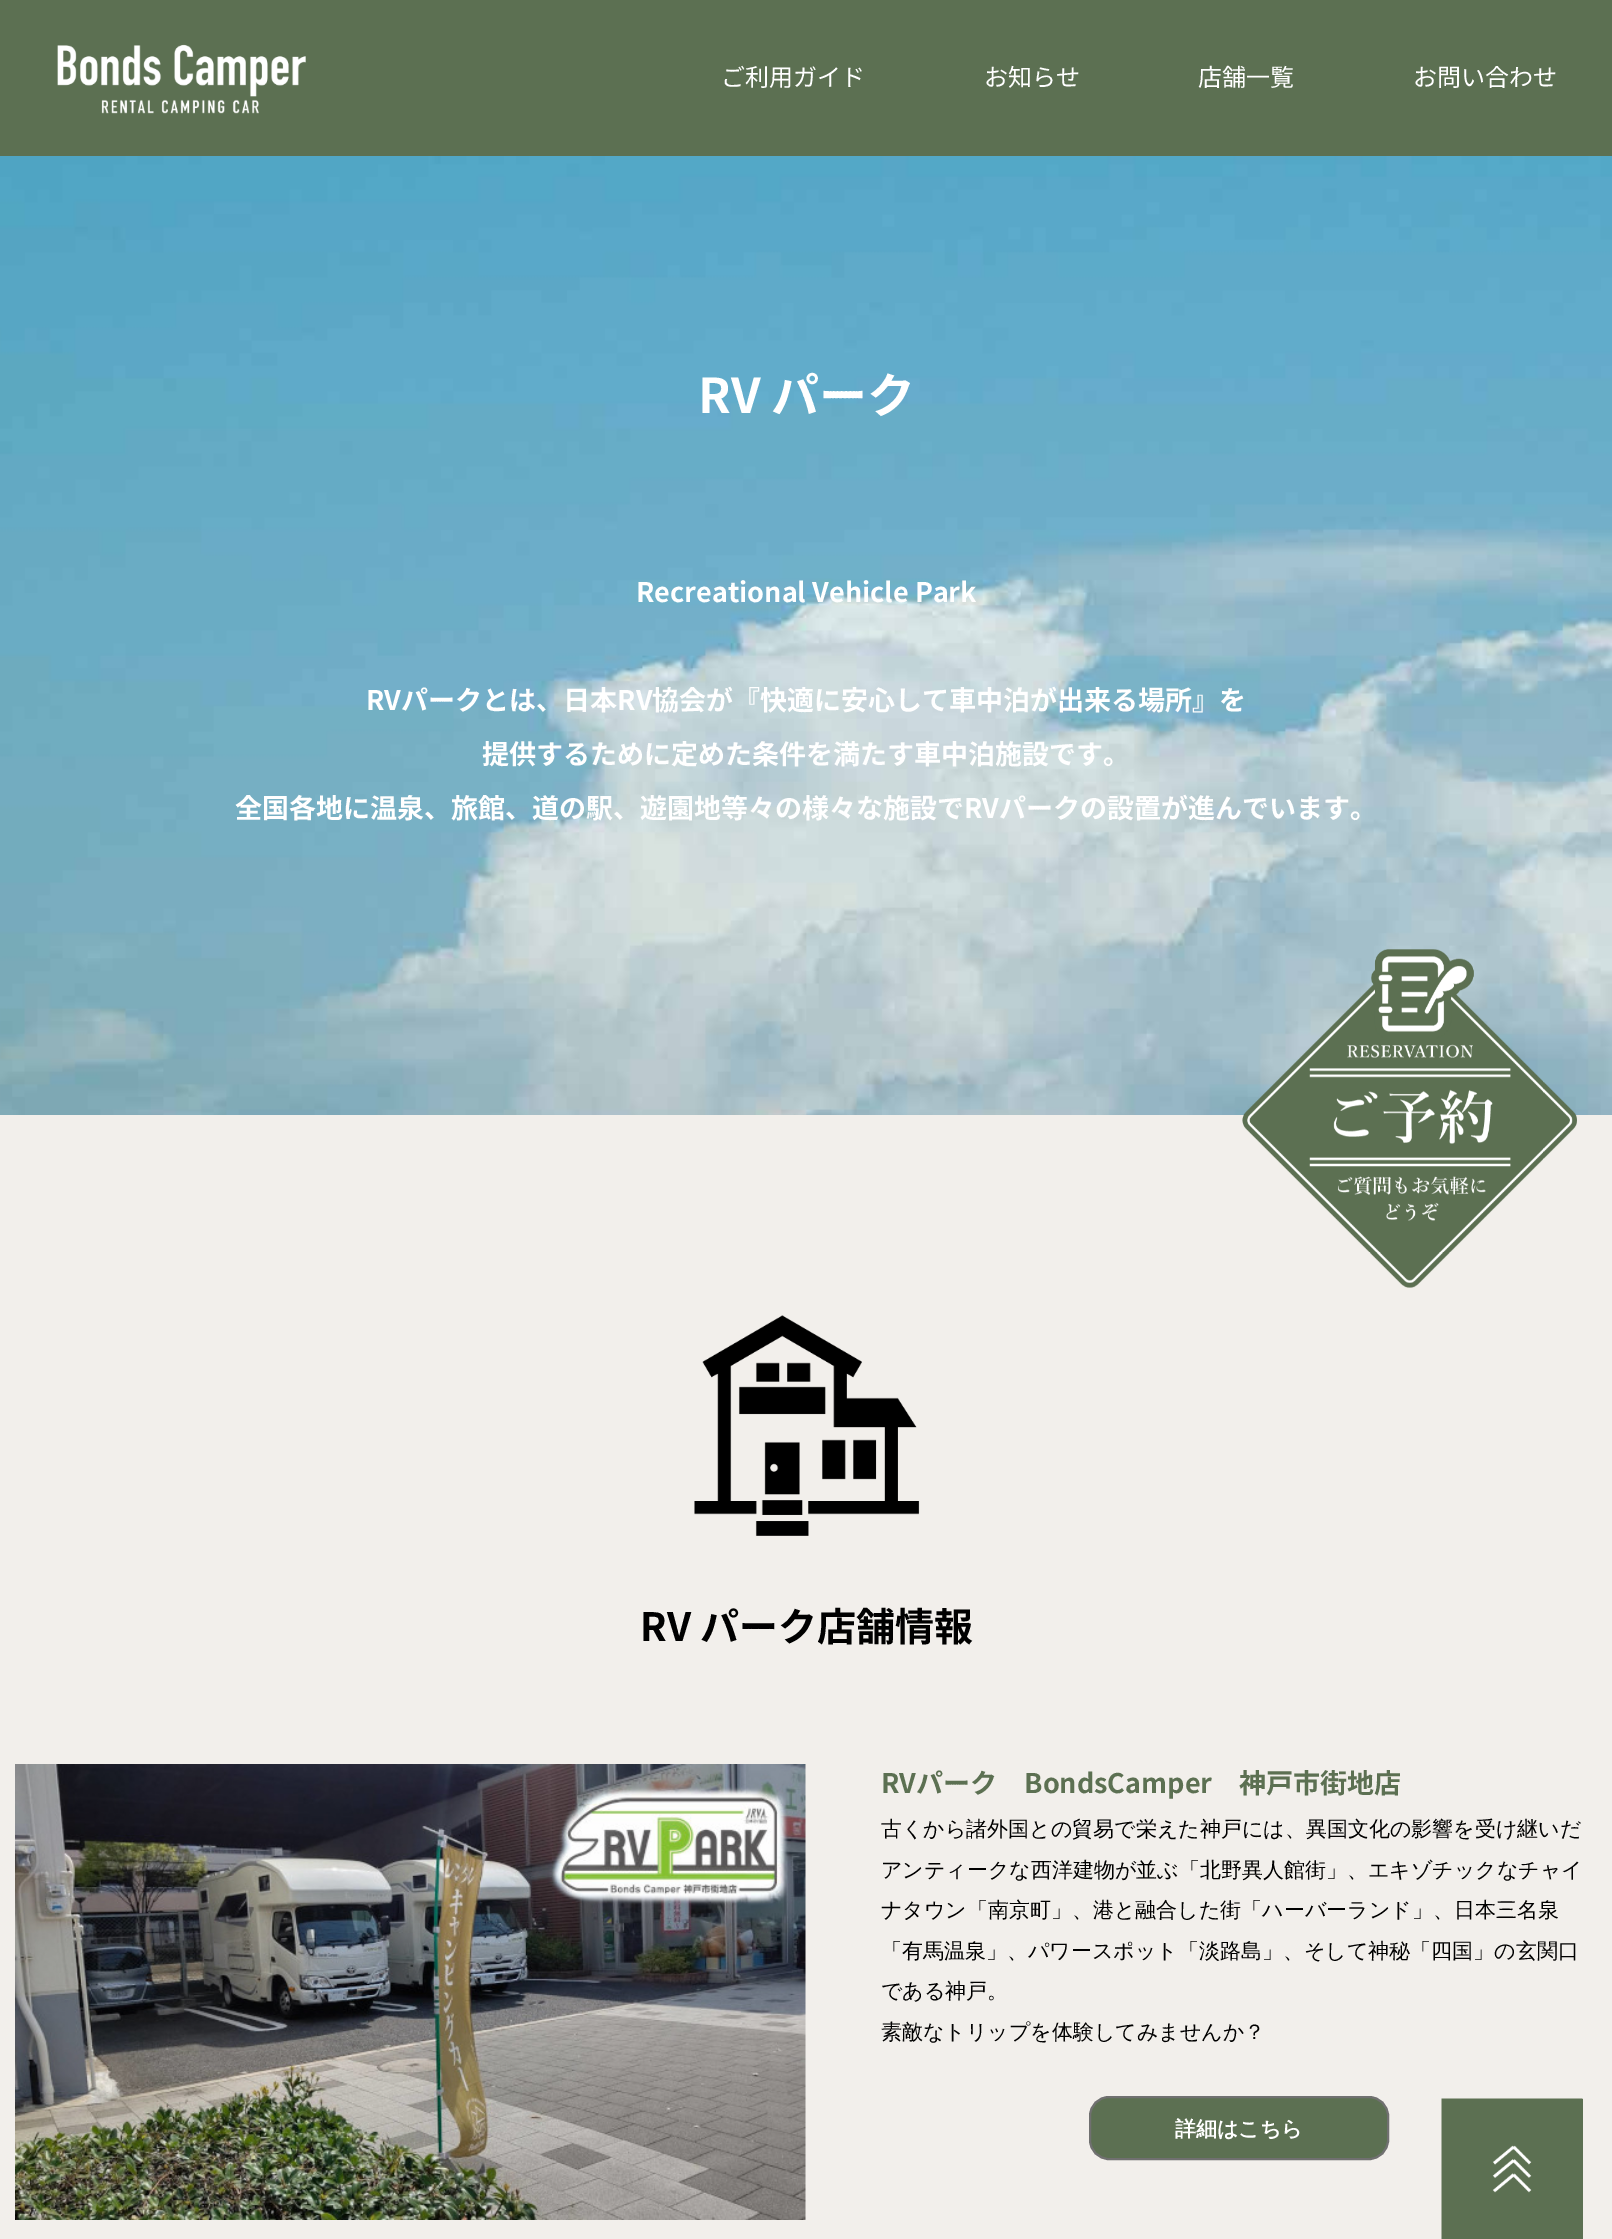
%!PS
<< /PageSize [1612 2239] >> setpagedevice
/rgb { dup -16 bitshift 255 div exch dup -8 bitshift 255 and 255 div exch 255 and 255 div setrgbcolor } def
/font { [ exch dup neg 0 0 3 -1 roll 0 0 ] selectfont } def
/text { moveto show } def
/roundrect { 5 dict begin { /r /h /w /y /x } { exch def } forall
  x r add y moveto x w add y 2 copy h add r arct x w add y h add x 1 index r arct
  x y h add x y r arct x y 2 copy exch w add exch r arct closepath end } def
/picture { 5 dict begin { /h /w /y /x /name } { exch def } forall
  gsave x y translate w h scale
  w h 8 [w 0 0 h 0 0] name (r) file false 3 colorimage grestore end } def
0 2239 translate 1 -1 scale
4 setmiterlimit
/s1 { /NotoSansJP-Regular 24 font 16#FFFFFF rgb } def
/s2 { /NotoSansJP-Bold 48 font 16#FFFFFF rgb } def
/s3 { /NotoSansJP-Bold 27 font 16#FFFFFF rgb } def
/s4 { /NotoSansJP-Bold 39 font 16#000000 rgb } def
/s5 { /NotoSansJP-Bold 27 font 16#5C7052 rgb } def
/s6 { /WenQuanYiZenHei-Medium 21 font 16#000000 rgb } def
/s7 { /WenQuanYiZenHei-Bold 21 font 16#FFFFFF rgb } def
16#FFFFFF rgb
0 0 1612 2239 rectfill
16#5C7052 rgb
0 0 1612 156 rectfill
(pic1.raw) 57 44 249 70 picture
s1
(ご利用ガイド) 721 86 text
(お知らせ) 984 86 text
(店舗一覧) 1198 86 text
(お問い合わせ) 1413 86 text
(pic2.raw) 0 156 1612 959 picture
s2
(RV パーク) 698 413 text
s3
(Recreational Vehicle Park) 636 602 text
(RVパークとは、日本RV協会が『快適に安心して車中泊が出来る場所』を) 366 710 text
(提供するために定めた条件を満たす車中泊施設です。) 482 764 text
(全国各地に温泉、旅館、道の駅、遊園地等々の様々な施設でRVパークの設置が進んでいます。) 235 818 text
16#F2EFEB rgb
0 1115 1612 1124 rectfill
(pic3.raw) 694 1315 226 221 picture
s4
(RV パーク店舗情報) 640 1641 text
(pic4.raw) 15 1764 791 456 picture
s5
(RVパーク　BondsCamper　神戸市街地店) 881 1793 text
s6
(古くから諸外国との貿易で栄えた神戸には、異国文化の影響を受け継いだ) 881 1836 text
(アンティークな西洋建物が並ぶ「北野異人館街」、エキゾチックなチャイ) 881 1877 text
(ナタウン「南京町」、港と融合した街「ハーバーランド」、日本三名泉) 881 1917 text
(「有馬温泉」、パワースポット「淡路島」、そして神秘「四国」の玄関口) 881 1958 text
(である神戸。) 881 1998 text
(素敵なトリップを体験してみませんか？) 881 2039 text
16#5C7052 rgb
1090 2097 298 62 19 roundrect gsave fill grestore
16#707070 rgb
2 setlinewidth
stroke
s7
(詳細はこちら) 1175 2136 text
(pic5.raw) 1242 949 335 339 picture
16#5C7052 rgb
1582 2099 1 140 rectfill
(pic6.raw) 1441 2098 142 141 picture
showpage
